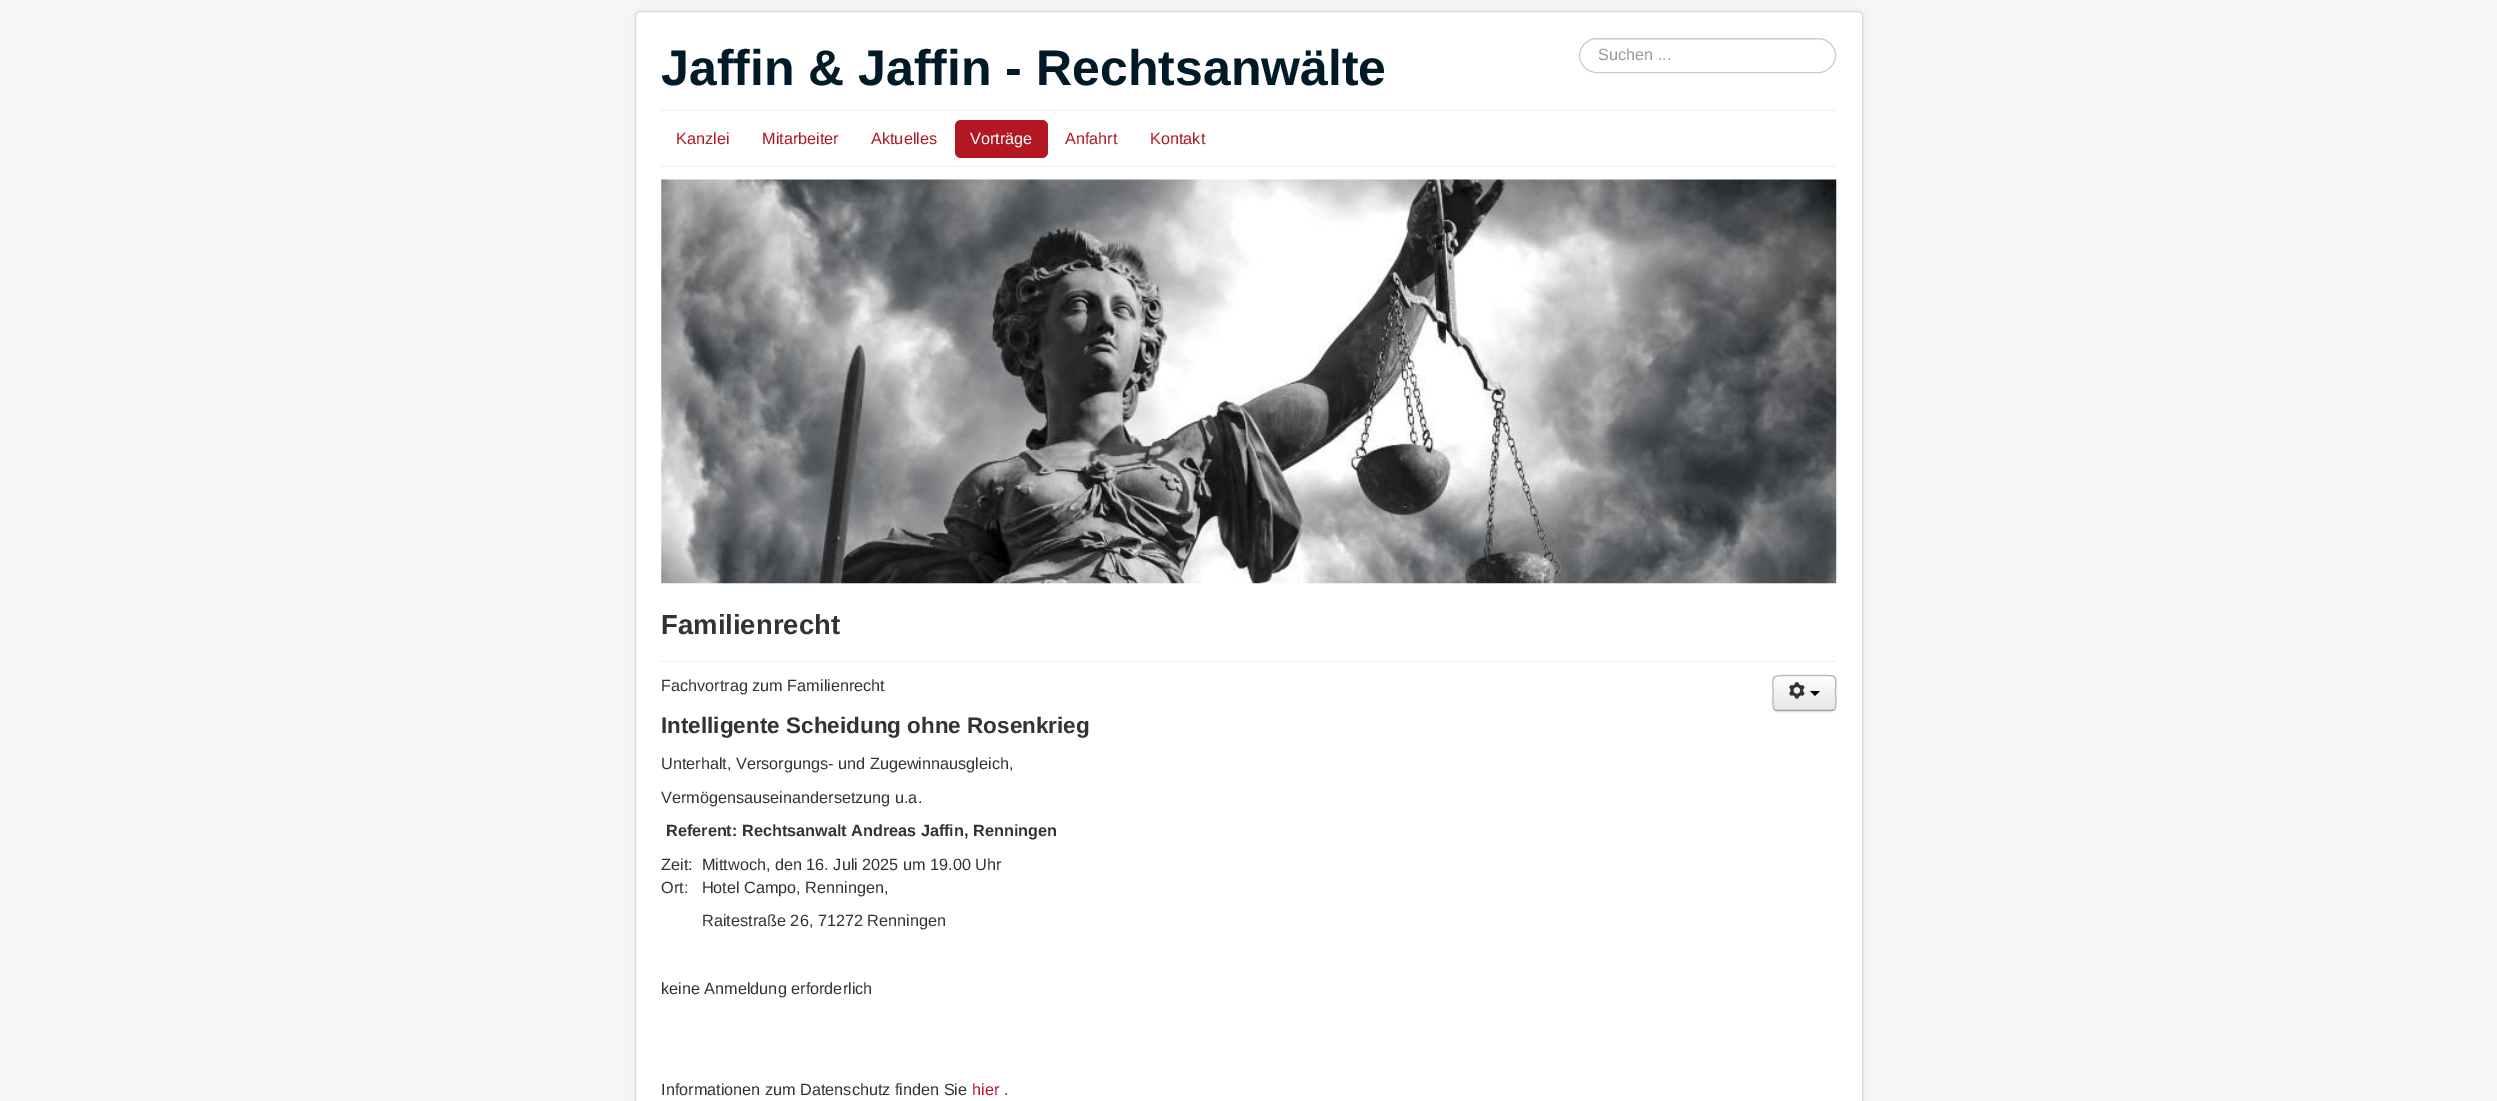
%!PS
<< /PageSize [2497 1101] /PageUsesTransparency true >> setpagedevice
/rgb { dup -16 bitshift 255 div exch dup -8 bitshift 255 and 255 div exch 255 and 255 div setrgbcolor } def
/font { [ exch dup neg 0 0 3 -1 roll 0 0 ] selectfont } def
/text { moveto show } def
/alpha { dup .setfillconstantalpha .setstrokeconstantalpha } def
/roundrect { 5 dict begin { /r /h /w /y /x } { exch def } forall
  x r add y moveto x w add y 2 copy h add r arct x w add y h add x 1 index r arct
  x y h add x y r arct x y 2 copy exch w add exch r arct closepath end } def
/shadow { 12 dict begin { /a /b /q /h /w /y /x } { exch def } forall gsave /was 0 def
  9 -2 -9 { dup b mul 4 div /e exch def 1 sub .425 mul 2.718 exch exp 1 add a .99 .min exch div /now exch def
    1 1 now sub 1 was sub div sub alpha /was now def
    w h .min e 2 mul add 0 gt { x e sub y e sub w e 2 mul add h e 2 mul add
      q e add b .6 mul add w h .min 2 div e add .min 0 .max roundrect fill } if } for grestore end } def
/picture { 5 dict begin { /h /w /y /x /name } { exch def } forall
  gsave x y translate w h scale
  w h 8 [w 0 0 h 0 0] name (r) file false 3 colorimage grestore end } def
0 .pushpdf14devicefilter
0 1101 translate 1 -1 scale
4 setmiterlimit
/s1 { /LiberationSans-Bold 50 font 16#001A27 rgb } def
/s2 { /LiberationSans-Regular 16.25 font 16#999999 rgb } def
/s3 { /LiberationSans-Regular 16.25 font 16#B31722 rgb } def
/s4 { /LiberationSans-Regular 16.25 font 16#FFFFFF rgb } def
/s5 { /LiberationSans-Bold 27.5 font 16#333333 rgb } def
/s6 { /LiberationSans-Regular 16.25 font 16#333333 rgb } def
/s7 { /LiberationSans-Bold 22.5 font 16#333333 rgb } def
/s8 { /LiberationSans-Bold 16.25 font 16#333333 rgb } def
16#F4F6F7 rgb
0 0 2497 1101 rectfill
16#000000 rgb
635 11 1228 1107 5 4 0.05 shadow
16#FFFFFF rgb
635 11 1228 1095 5 roundrect fill
0.15 alpha
16#000000 rgb
635.5 11.5 1227 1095 4.5 roundrect stroke
1 alpha
s1
(Jaffin & Jaffin - Rechtsanwälte) 661 85 text
16#ECECEC rgb
1596 40 moveto 1819 40 lineto 1828 40 1835 47 1835 55 curveto 1835 47 1828 39 1819 39 curveto 1596 39 lineto 1587 39 1580 47 1580 55 curveto 1580 47 1587 40 1596 40 curveto closepath fill
16#CCCCCC rgb
1579.5 38.5 256 34 17 roundrect stroke
s2
(Suchen ...) 1598 60 text
16#ECECEC rgb
661 110 1175 1 rectfill
661 166 1175 1 rectfill
s3
(Kanzlei) 676 144 text
(Mitarbeiter) 762 144 text
(Aktuelles) 871 144 text
955 120 93 38 6 roundrect fill
s4
(Vorträge) 970 144 text
s3
(Anfahrt) 1065 144 text
(Kontakt) 1150 144 text
(pic1.raw) 661 179 1176 405 picture
16#EEEEEE rgb
661 661 1175 1 rectfill
s5
(Familienrecht) 661 634 text
s6
(Fachvortrag zum Familienrecht) 661 691 text
16#000000 rgb
1773 676 63 37 5 1 0.05 shadow
16#F5F5F5 rgb
1773 675 63 36 5 roundrect fill
gsave
1773 675 63 36 5 roundrect clip newpath
gsave 1773 676 moveto 1836 676 lineto 1836 710 lineto 1773 710 lineto closepath clip newpath
<< /ShadingType 2 /ColorSpace /DeviceRGB /Coords [1804 676 1804 710] /Extend [true true] /Function << /FunctionType 2 /Domain [0 1] /C0 [1 1 1] /C1 [0.902 0.902 0.902] /N 1 >> >> shfill grestore
grestore
16#A2A2A2 rgb
1.2 setlinewidth
1834.5 709.5 moveto 1833.5 710 1832.5 710.5 1831 710.5 curveto 1777.5 710.5 lineto 1776.5 710.5 1775 710 1774.5 709.5 curveto stroke
16#BBBBBB rgb
1774.5 709.5 moveto 1772 706.5 1773 696.5 1773 693 curveto 1773 676 1770 675.5 1786.5 675.5 curveto 1822.5 675.5 lineto 1839 675.5 1835.5 676 1835.5 693 curveto 1835.5 696.5 1837 706.5 1834.5 709.5 curveto stroke
(pic2.raw) 1789 682 16 17 picture
16#000000 rgb
1810 691 moveto 1820 691 lineto 1815 696 lineto closepath fill
s7
(Intelligente Scheidung ohne Rosenkrieg) 661 733 text
s6
(Unterhalt, Versorgungs- und Zugewinnausgleich,) 661 769 text
(Vermögensauseinandersetzung u.a.) 661 803 text
s8
(Referent: Rechtsanwalt Andreas Jaffin, Renningen) 666 836 text
s6
(Zeit:  Mittwoch, den 16. Juli 2025 um 19.00 Uhr) 661 870 text
(Ort:   Hotel Campo, Renningen,) 661 893 text
(Raitestraße 26, 71272 Renningen) 702 926 text
(keine Anmeldung erforderlich) 661 994 text
(Informationen zum Datenschutz finden Sie) 661 1095 text
s3
(hier) 972 1095 text
s6
(.) 1004 1095 text
.poppdf14devicefilter showpage
